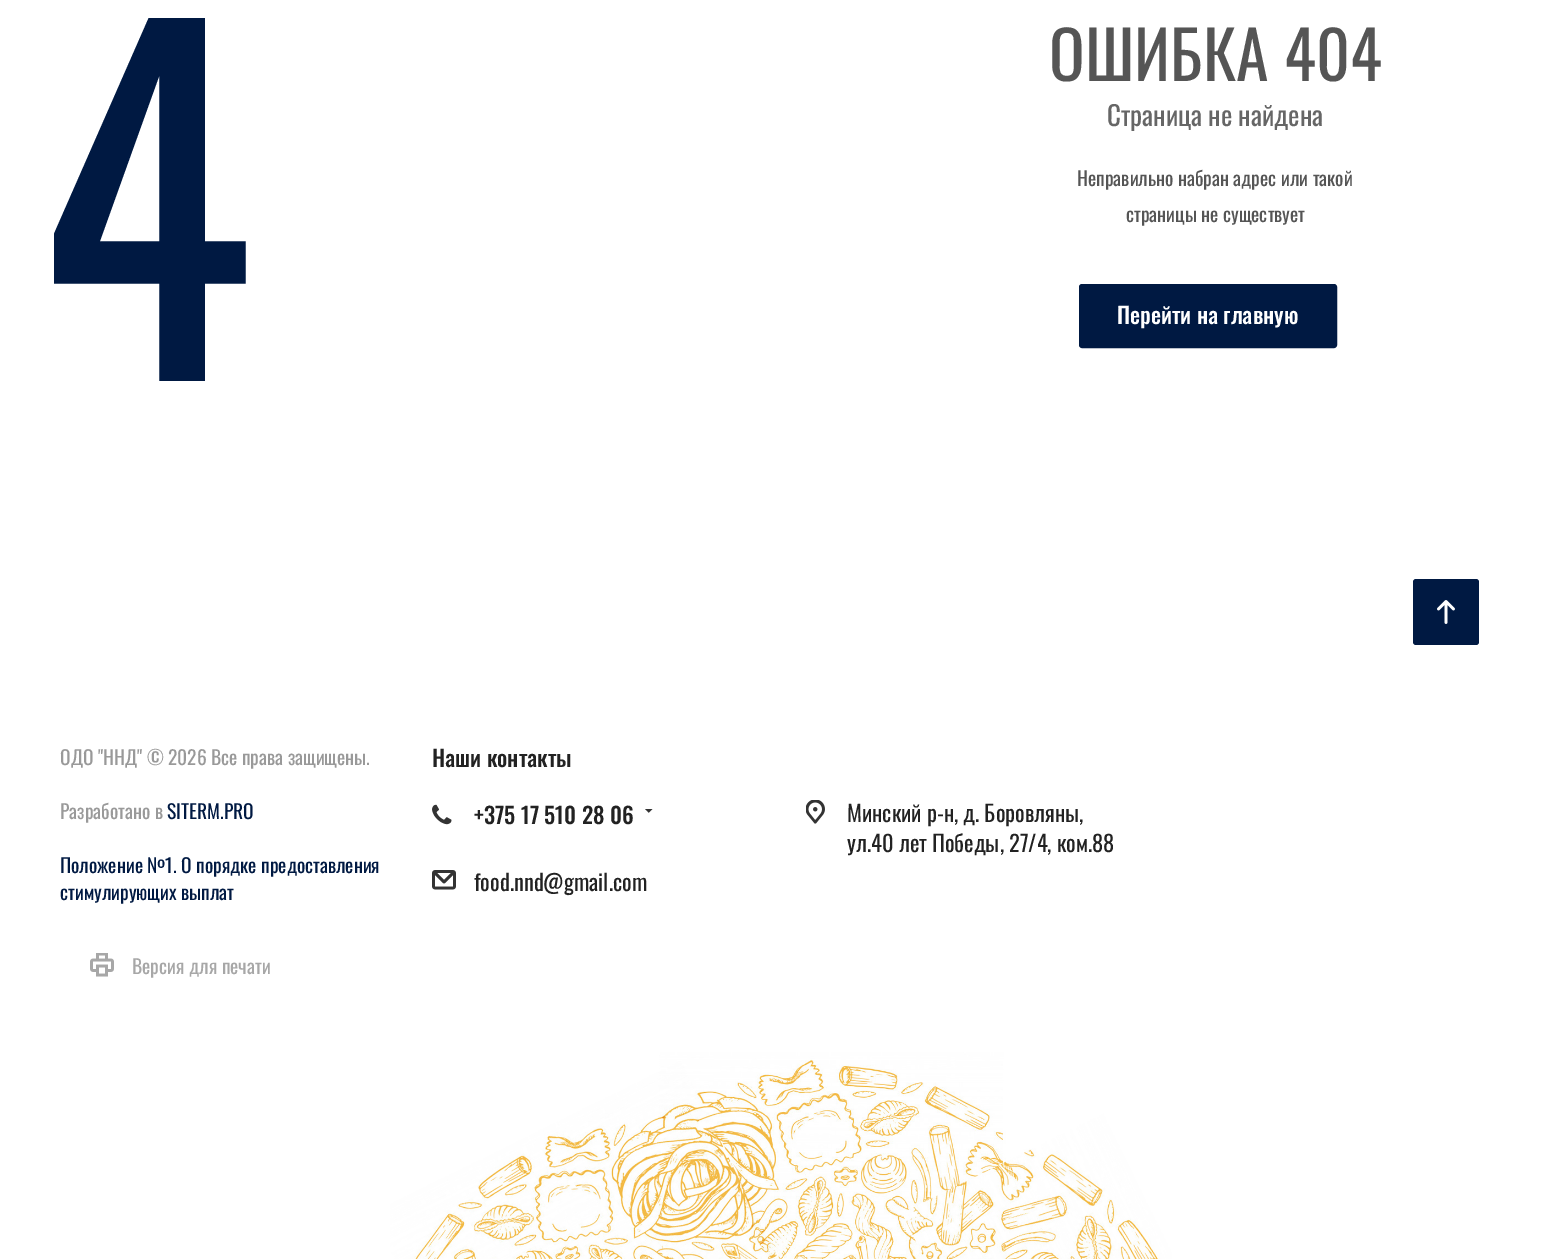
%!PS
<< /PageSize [1561 1259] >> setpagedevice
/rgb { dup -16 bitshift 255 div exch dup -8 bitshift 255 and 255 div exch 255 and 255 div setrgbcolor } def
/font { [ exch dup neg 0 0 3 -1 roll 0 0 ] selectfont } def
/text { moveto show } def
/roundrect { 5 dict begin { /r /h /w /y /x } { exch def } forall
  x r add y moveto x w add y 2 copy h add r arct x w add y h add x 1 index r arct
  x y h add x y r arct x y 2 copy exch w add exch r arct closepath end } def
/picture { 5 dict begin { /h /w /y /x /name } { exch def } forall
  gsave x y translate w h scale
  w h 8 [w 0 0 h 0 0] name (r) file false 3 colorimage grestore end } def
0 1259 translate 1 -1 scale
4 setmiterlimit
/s1 { /Oswald-Regular 450 font 16#001942 rgb } def
/s2 { /Oswald-Regular 66 font 16#555555 rgb } def
/s3 { /Oswald-Regular 27 font 16#666666 rgb } def
/s4 { /Oswald-Regular 19.5 font 16#555555 rgb } def
/s5 { /Oswald-Medium 22.5 font 16#FFFFFF rgb } def
/s6 { /Oswald-Regular 19.5 font 16#999999 rgb } def
/s7 { /Oswald-Regular 19.5 font 16#001942 rgb } def
/s8 { /Oswald-Regular 19.5 font 16#A7A7A7 rgb } def
/s9 { /Oswald-Medium 22.5 font 16#222222 rgb } def
/s10 { /Oswald-Regular 22.5 font 16#222222 rgb } def
16#FFFFFF rgb
0 0 1561 1259 rectfill
s1
(4) 36 381 text
s2
(ОШИБКА 404) 1049 81 text
s3
(Страница не найдена) 1107 126 text
s4
(Неправильно набран адрес или такой) 1077 186 text
(страницы не существует) 1126 222 text
16#001942 rgb
1080 285 256 62 2 roundrect gsave fill grestore
2 setlinewidth
stroke
s5
(Перейти на главную) 1117 324 text
16#001942 rgb
1413 579 66 66 3 roundrect fill
(pic1.raw) 1437 600 18 24 picture
s6
(ОДО "ННД" © 2026 Все права защищены.) 60 765 text
(Разработано в) 60 819 text
s7
(SITERM.PRO) 167 819 text
(Положение №1. О порядке предоставления) 60 873 text
(стимулирующих выплат) 60 900 text
(pic2.raw) 90 953 24 24 picture
s8
(Версия для печати) 132 974 text
s9
(Наши контакты) 432 767 text
(pic3.raw) 432 804 20 21 picture
(+375 17 510 28 06) 474 824 text
(pic4.raw) 645 809 8 4 picture
(pic5.raw) 432 870 24 20 picture
s10
(food.nnd@gmail.com) 474 891 text
(pic6.raw) 806 800 19 24 picture
(Минский р-н, д. Боровляны,) 847 822 text
(ул.40 лет Победы, 27/4, ком.88) 847 852 text
(pic7.raw) 390 1052 782 207 picture
showpage
